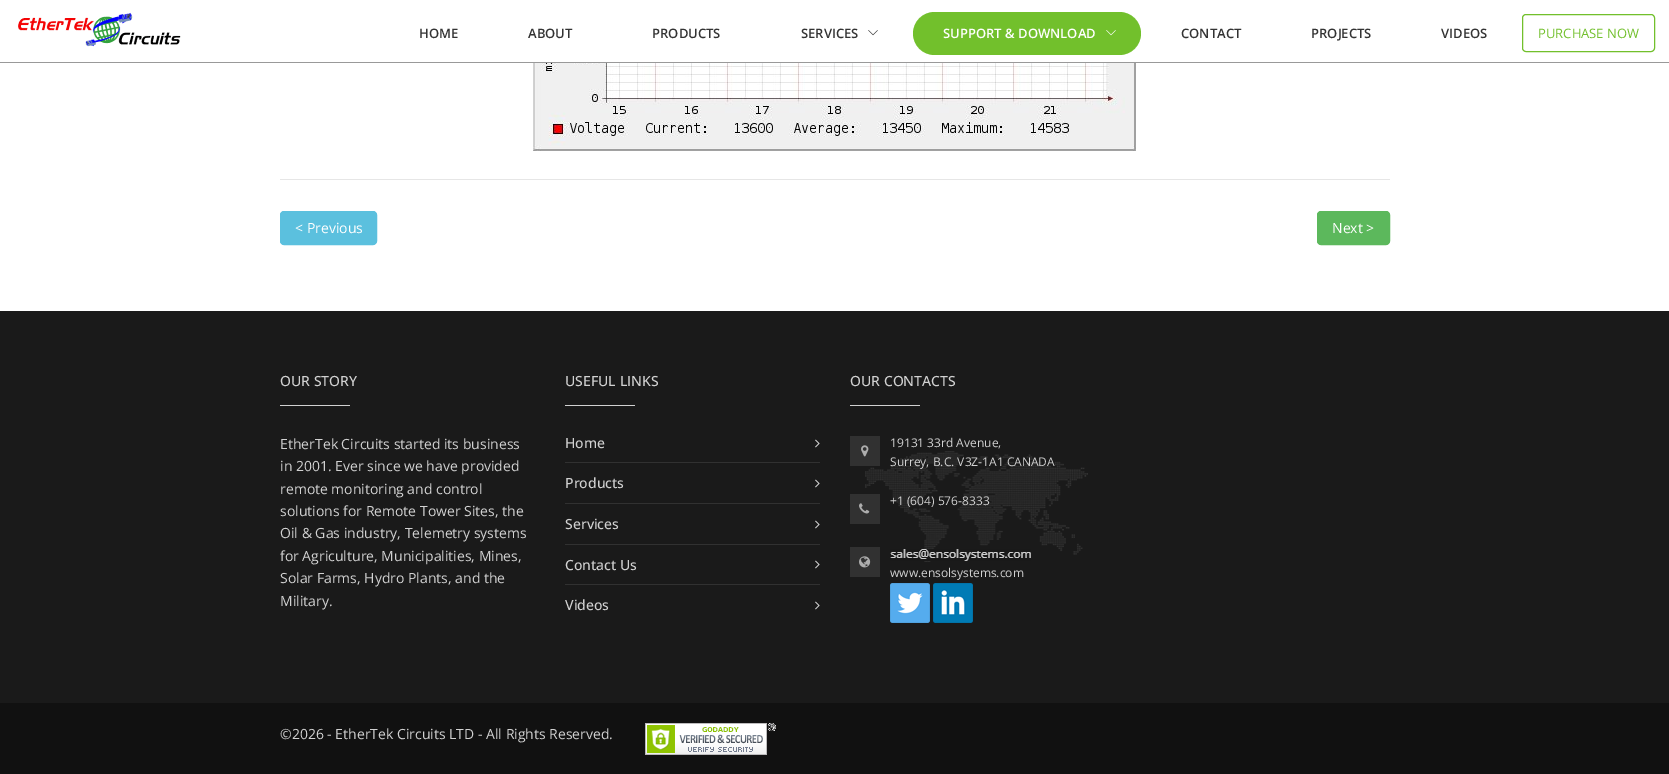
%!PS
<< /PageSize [1669 774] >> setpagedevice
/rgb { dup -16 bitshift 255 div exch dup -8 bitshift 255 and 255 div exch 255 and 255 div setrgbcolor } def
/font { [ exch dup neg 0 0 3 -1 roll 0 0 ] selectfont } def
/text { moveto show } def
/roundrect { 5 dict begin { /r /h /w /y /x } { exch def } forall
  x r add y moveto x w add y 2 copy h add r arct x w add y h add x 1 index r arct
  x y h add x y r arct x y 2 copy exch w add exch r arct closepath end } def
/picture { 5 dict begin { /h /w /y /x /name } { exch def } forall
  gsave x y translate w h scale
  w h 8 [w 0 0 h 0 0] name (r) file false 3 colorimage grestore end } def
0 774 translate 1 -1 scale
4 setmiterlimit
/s1 { /OpenSans-SemiBold 13 font 16#333333 rgb } def
/s2 { /OpenSans-SemiBold 13 font 16#FFFFFF rgb } def
/s3 { /OpenSans-Regular 13 font 16#72C02C rgb } def
/s4 { /OpenSans-Regular 14 font 16#FFFFFF rgb } def
/s5 { /OpenSans-Medium 14 font 16#D1D1D1 rgb } def
/s6 { /OpenSans-Regular 14 font 16#D1D1D1 rgb } def
/s7 { /OpenSans-Regular 12 font 16#D1D1D1 rgb } def
16#FFFFFF rgb
0 0 1669 774 rectfill
16#999999 rgb
0 62 1669 1 rectfill
(pic1.raw) 18 12 163 35 picture
s1
(HOME) 419 38 text
(ABOUT) 528 38 text
(PRODUCTS) 652 38 text
(SERVICES) 801 38 text
(pic2.raw) 868 30 10 6 picture
16#72C02C rgb
913 12 228 43 21.5 roundrect fill
s2
(SUPPORT & DOWNLOAD) 943 38 text
(pic3.raw) 1106 30 10 6 picture
s1
(CONTACT) 1181 38 text
(PROJECTS) 1311 38 text
(VIDEOS) 1441 38 text
16#72C02C rgb
1522.5 14.5 132 37 3.5 roundrect stroke
s3
(PURCHASE NOW) 1538 38 text
(pic4.raw) 533 63 603 88 picture
16#E6E6E6 rgb
280 179 1110 1 rectfill
16#5BC0DE rgb
280.5 211.5 96 33 3.5 roundrect gsave fill grestore
stroke
s4
(< Previous) 295 233 text
16#5CB85C rgb
1317.5 211.5 72 33 3.5 roundrect gsave fill grestore
stroke
s4
(Next >) 1332 233 text
16#1A1A1A rgb
0 311 1669 392 rectfill
s5
(OUR STORY) 280 386 text
280 405 70 1 rectfill
s6
(EtherTek Circuits started its business) 280 449 text
(in 2001. Ever since we have provided) 280 471 text
(remote monitoring and control) 280 494 text
(solutions for Remote Tower Sites, the) 280 516 text
(Oil & Gas industry, Telemetry systems) 280 538 text
(for Agriculture, Municipalities, Mines,) 280 561 text
(Solar Farms, Hydro Plants, and the) 280 583 text
(Military.) 280 606 text
s5
(USEFUL LINKS) 565 386 text
565 405 70 1 rectfill
16#313131 rgb
565 462 255 1 rectfill
s5
(Home) 565 448 text
(pic5.raw) 815 439 5 9 picture
16#313131 rgb
565 503 255 1 rectfill
s5
(Products) 565 488 text
(pic5.raw) 815 479 5 9 picture
16#313131 rgb
565 544 255 1 rectfill
s5
(Services) 565 529 text
(pic5.raw) 815 520 5 9 picture
16#313131 rgb
565 584 255 1 rectfill
s5
(Contact Us) 565 570 text
(pic5.raw) 815 560 5 9 picture
(Videos) 565 610 text
(pic5.raw) 815 601 5 9 picture
(OUR CONTACTS) 850 386 text
850 405 70 1 rectfill
(pic6.raw) 865 451 223 111 picture
16#313131 rgb
850 436 30 30 rectfill
(pic7.raw) 861 445 8 12 picture
s7
(19131 33rd Avenue,) 890 447 text
(Surrey, B.C. V3Z-1A1 CANADA) 890 466 text
16#313131 rgb
850 494 30 30 rectfill
(pic8.raw) 859 503 11 11 picture
s7
(+1 \(604\) 576-8333) 890 505 text
16#313131 rgb
850 547 30 30 rectfill
(pic9.raw) 859 556 12 12 picture
(pic10.raw) 890 549 141 12 picture
s7
(www.ensolsystems.com) 890 577 text
(pic11.raw) 890 583 40 40 picture
(pic12.raw) 933 583 40 40 picture
16#111111 rgb
0 703 1669 71 rectfill
s6
(©2026 - EtherTek Circuits LTD - All Rights Reserved.) 280 739 text
(pic13.raw) 645 723 131 32 picture
showpage
